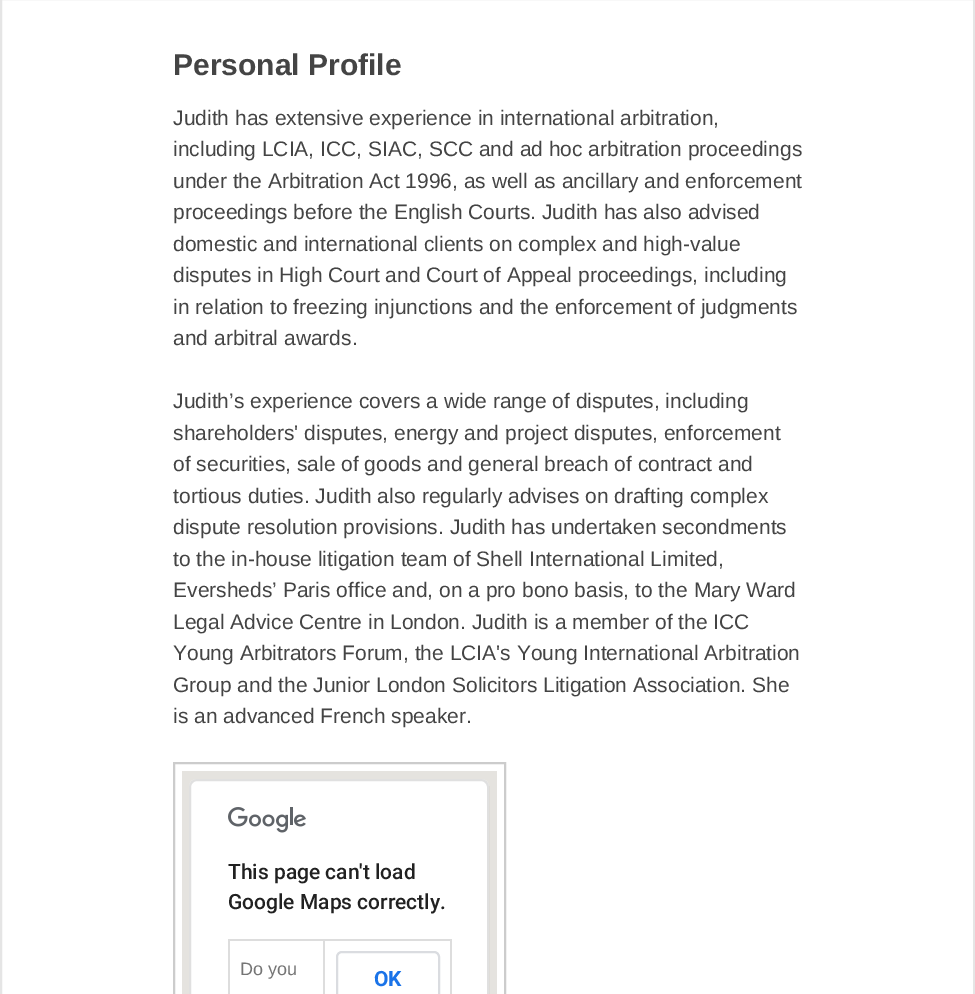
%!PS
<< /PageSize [975 994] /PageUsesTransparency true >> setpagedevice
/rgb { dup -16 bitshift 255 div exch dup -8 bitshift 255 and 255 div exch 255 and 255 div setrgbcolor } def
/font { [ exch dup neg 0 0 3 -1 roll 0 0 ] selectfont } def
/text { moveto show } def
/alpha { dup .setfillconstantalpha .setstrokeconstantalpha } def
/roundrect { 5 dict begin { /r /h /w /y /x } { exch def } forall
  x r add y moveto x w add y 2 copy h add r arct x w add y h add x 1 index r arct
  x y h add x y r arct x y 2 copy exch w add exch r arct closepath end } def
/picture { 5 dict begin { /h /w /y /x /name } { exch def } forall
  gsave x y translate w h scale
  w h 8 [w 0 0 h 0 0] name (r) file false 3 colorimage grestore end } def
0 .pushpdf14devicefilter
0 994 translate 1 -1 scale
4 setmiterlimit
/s1 { /LiberationSans-Bold 30 font 16#444444 rgb } def
/s2 { /LiberationSans-Regular 21 font 16#444444 rgb } def
/s3 { /Roboto-Medium 21 font 16#212121 rgb } def
/s4 { /LiberationSans-Regular 18 font 16#757575 rgb } def
/s5 { /Roboto-Bold 21 font 16#1A73E8 rgb } def
16#FFFFFF rgb
0 0 975 994 rectfill
16#E5E5E5 rgb
2 setlinewidth
1 -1 973 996 rectstroke
s1
(Personal Profile) 173 75 text
s2
(Judith has extensive experience in international arbitration,) 173 125 text
(including LCIA, ICC, SIAC, SCC and ad hoc arbitration proceedings) 173 156 text
(under the Arbitration Act 1996, as well as ancillary and enforcement) 173 188 text
(proceedings before the English Courts. Judith has also advised) 173 219 text
(domestic and international clients on complex and high-value) 173 251 text
(disputes in High Court and Court of Appeal proceedings, including) 173 282 text
(in relation to freezing injunctions and the enforcement of judgments) 173 314 text
(and arbitral awards.) 173 345 text
(Judith’s experience covers a wide range of disputes, including) 173 408 text
(shareholders' disputes, energy and project disputes, enforcement) 173 440 text
(of securities, sale of goods and general breach of contract and) 173 471 text
(tortious duties. Judith also regularly advises on drafting complex) 173 503 text
(dispute resolution provisions. Judith has undertaken secondments) 173 534 text
(to the in-house litigation team of Shell International Limited,) 173 566 text
(Eversheds’ Paris office and, on a pro bono basis, to the Mary Ward) 173 597 text
(Legal Advice Centre in London. Judith is a member of the ICC) 173 629 text
(Young Arbitrators Forum, the LCIA's Young International Arbitration) 173 660 text
(Group and the Junior London Solicitors Litigation Association. She) 173 692 text
(is an advanced French speaker.) 173 723 text
16#CCCCCC rgb
174 763 331 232 rectstroke
16#E5E3DF rgb
182 771 315 223 rectfill
16#FFFFFF rgb
197 779 moveto 481 779 lineto 485.5 779 489 782.5 489 787 curveto 489 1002 lineto 189 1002 lineto 189 787 lineto 189 782.5 192.5 779 197 779 curveto closepath fill
0.12 alpha
16#000000 rgb
190 780 298 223 7 roundrect stroke
1 alpha
(pic1.raw) 228 807 78 26 picture
s3
(This page can't load) 228 879 text
(Google Maps correctly.) 228 909 text
16#DDDDDD rgb
323 939 129 2 rectfill
323 939 2 55 rectfill
228 939 96 2 rectfill
228 939 2 55 rectfill
s4
(Do you) 240 975 text
16#DDDDDD rgb
450 939 2 55 rectfill
16#DADCE0 rgb
337 952 102 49 5 roundrect stroke
s5
(OK) 374 986 text
.poppdf14devicefilter showpage
